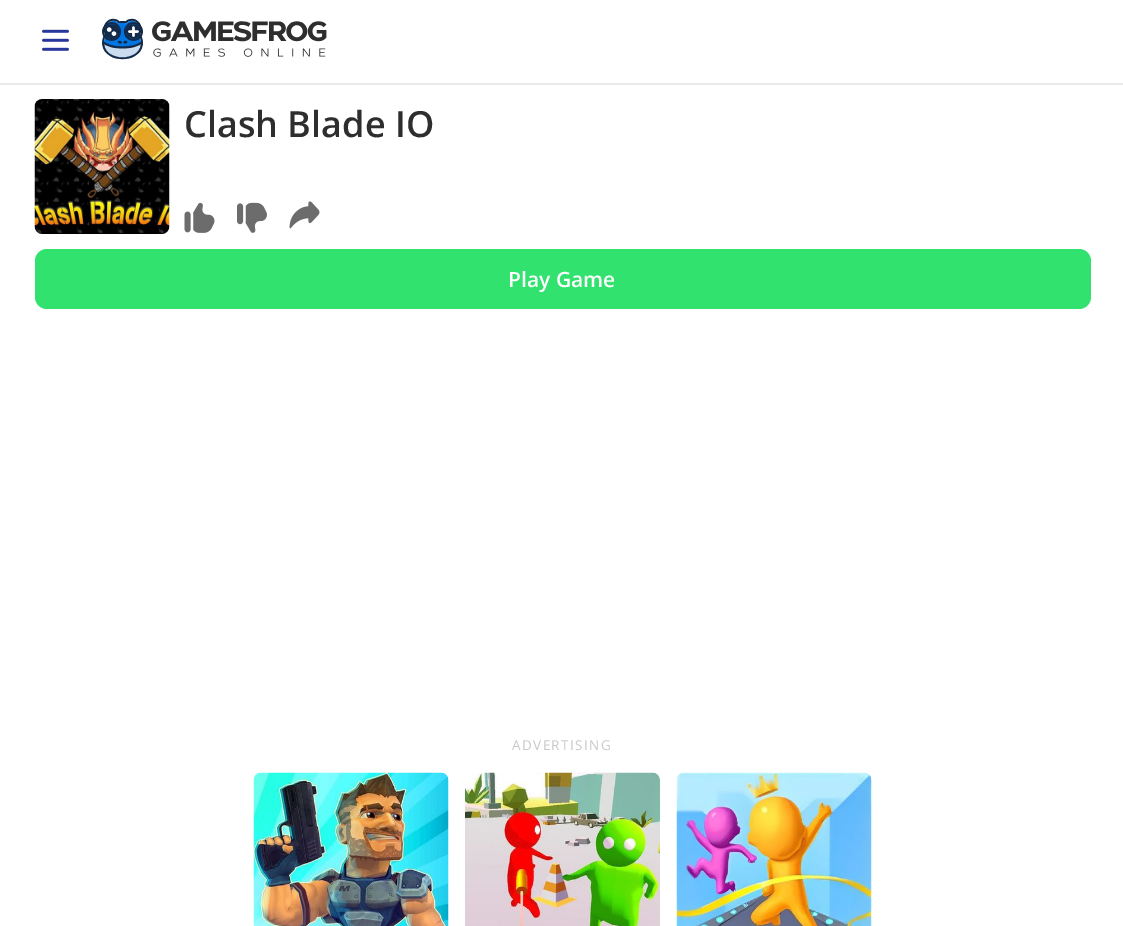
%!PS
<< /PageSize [1123 926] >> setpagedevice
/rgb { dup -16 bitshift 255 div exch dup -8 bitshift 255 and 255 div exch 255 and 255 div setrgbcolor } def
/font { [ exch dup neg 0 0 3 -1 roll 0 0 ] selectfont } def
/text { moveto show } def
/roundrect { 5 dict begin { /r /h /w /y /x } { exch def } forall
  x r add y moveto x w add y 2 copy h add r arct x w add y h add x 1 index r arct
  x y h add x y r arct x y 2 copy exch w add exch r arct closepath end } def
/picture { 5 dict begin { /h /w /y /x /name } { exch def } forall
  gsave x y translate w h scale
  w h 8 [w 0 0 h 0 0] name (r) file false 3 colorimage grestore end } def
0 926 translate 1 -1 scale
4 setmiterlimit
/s1 { /OpenSans-SemiBold 36 font 16#2E2E2E rgb } def
/s2 { /OpenSans-SemiBold 21 font 16#FFFFFF rgb } def
16#FFFFFF rgb
0 0 1123 926 rectfill
16#EBEBEB rgb
0 83 1123 2 rectfill
(pic1.raw) 42 29 27 22 picture
(pic2.raw) 102 18 225 42 picture
(pic3.raw) 34 99 136 135 picture
s1
(Clash Blade IO) 184 137 text
(pic4.raw) 184 202 31 31 picture
(pic5.raw) 237 202 30 31 picture
(pic6.raw) 289 201 31 28 picture
16#31E36E rgb
35 249 1056 60 12 roundrect fill
s2
(Play Game) 508 287 text
/OpenSans-Regular 13.5 font
16#C9C9C9 rgb
512 750 moveto 1.4 0 (ADVERTISING) ashow
(pic7.raw) 253 772 196 154 picture
(pic8.raw) 465 772 195 154 picture
(pic9.raw) 676 772 196 154 picture
showpage
